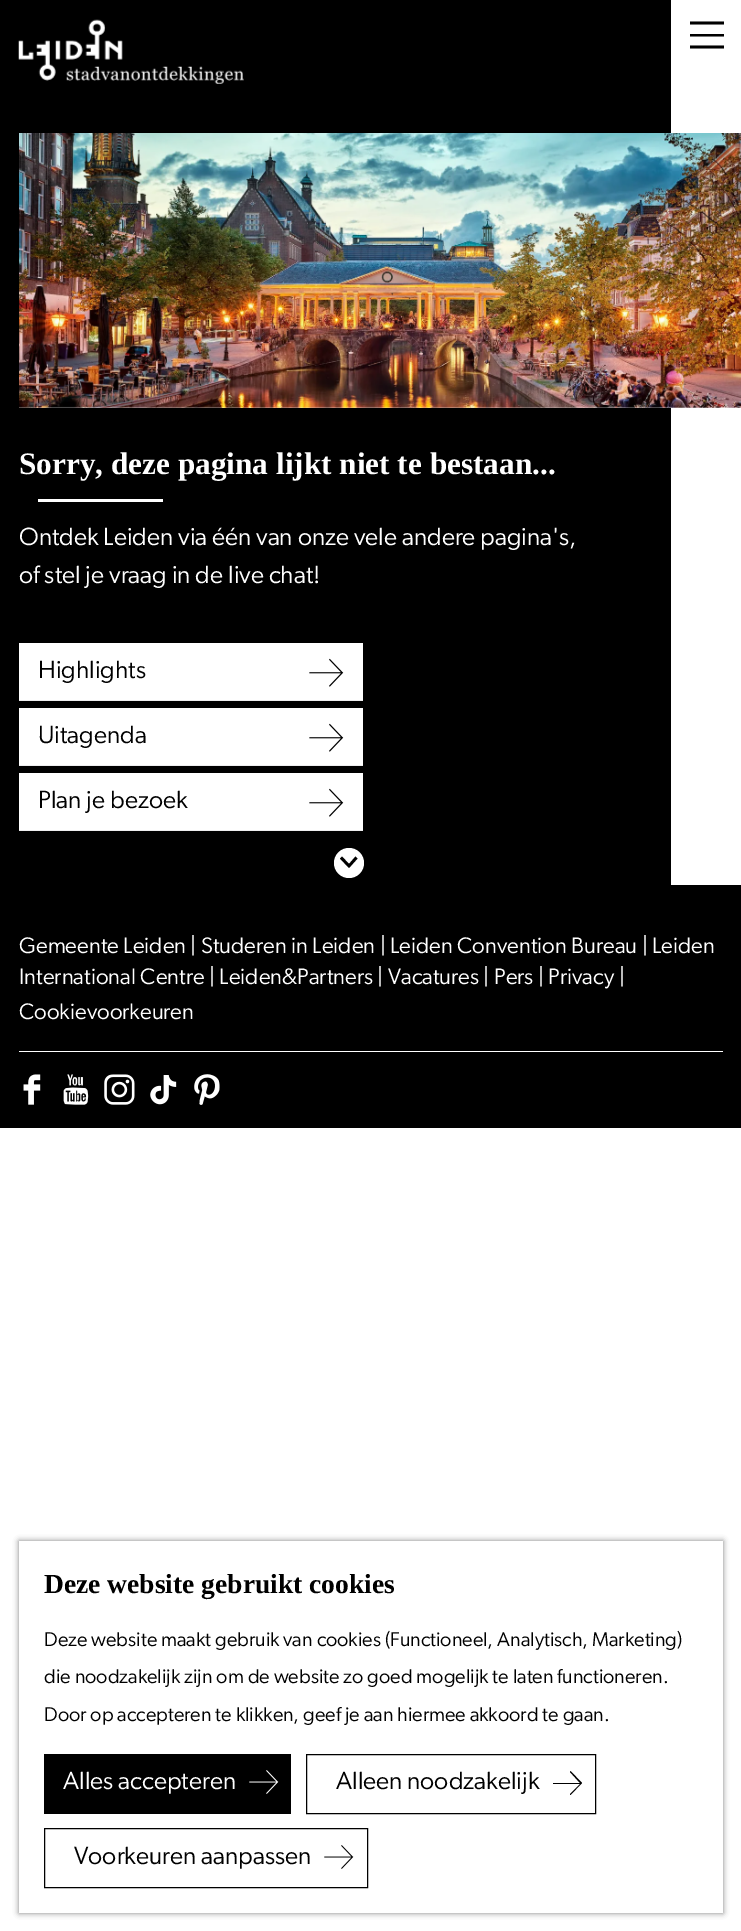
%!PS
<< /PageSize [741 1931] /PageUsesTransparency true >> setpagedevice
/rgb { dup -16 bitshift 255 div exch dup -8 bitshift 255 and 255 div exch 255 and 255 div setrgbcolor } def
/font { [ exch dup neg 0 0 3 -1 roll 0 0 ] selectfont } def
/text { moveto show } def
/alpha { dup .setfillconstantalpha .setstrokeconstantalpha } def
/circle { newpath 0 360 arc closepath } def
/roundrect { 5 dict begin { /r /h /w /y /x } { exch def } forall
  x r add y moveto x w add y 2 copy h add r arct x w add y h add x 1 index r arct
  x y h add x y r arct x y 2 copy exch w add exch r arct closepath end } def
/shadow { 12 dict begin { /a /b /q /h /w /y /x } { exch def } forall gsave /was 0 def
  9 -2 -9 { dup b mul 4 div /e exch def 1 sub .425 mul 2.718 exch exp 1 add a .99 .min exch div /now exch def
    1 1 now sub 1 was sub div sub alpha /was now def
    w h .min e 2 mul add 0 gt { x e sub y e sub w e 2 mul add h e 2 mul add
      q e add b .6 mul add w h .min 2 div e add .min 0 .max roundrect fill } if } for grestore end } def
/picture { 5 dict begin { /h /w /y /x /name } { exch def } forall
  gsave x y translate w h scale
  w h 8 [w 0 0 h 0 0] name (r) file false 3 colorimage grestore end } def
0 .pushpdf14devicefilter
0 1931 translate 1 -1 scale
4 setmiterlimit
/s1 { /LiberationSerif-Bold 31.25 font 16#FFFFFF rgb } def
/s2 { /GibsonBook-Regular 25 font 16#FFFFFF rgb } def
/s3 { /GibsonBook-Regular 25 font 16#000000 rgb } def
/s4 { /GibsonBook-Regular 22.5 font 16#FFFFFF rgb } def
/s5 { /LiberationSerif-Bold 27.5 font 16#000000 rgb } def
/s6 { /GibsonBook-Regular 20 font 16#000000 rgb } def
16#FFFFFF rgb
0 0 741 1931 rectfill
16#000000 rgb
0 0 671 885 rectfill
(pic1.raw) 18 19 226 65 picture
690 21.5 moveto 724 21.5 lineto 724 24.5 lineto 690 24.5 lineto closepath 690 34 moveto 724 34 lineto 724 36.5 lineto 690 36.5 lineto closepath 690 45.5 moveto 724 45.5 lineto 724 48.5 lineto 690 48.5 lineto closepath fill
16#EEEEEF rgb
19 406 722 2 rectfill
(pic2.raw) 19 133 722 275 picture
s1
(Sorry, deze pagina lijkt niet te bestaan...) 19 474 text
38 499 125 3 rectfill
s2
(Ontdek Leiden via één van onze vele andere pagina's,) 19 545 text
(of stel je vraag in de live chat!) 19 583 text
19 643 344 57 rectfill
16#EEEEEF rgb
19 700 344 1 rectfill
s3
(Highlights) 38 678 text
(pic3.raw) 309 658 35 29 picture
16#FFFFFF rgb
19 708 344 57 rectfill
16#EEEEEF rgb
19 765 344 1 rectfill
s3
(Uitagenda) 38 743 text
(pic3.raw) 309 723 35 29 picture
16#FFFFFF rgb
19 773 344 57 rectfill
16#EEEEEF rgb
19 830 344 1 rectfill
s3
(Plan je bezoek) 38 808 text
(pic3.raw) 309 788 35 29 picture
16#FFFFFF rgb
349 863 15 circle fill
16#000000 rgb
355.5 856.5 moveto 349 864 lineto 342 856.5 lineto 340 858.5 lineto 349 868 lineto 357.5 858.5 lineto closepath fill
0 885 741 243 rectfill
16#FFFFFF rgb
19 1051 704 1 rectfill
s4
(Gemeente Leiden | Studeren in Leiden | Leiden Convention Bureau | Leiden) 19 953 text
(International Centre | Leiden&Partners | Vacatures | Pers | Privacy |) 19 984 text
(Cookievoorkeuren) 19 1019 text
(pic4.raw) 23 1074 18 31 picture
(pic5.raw) 63 1074 26 31 picture
(pic6.raw) 104 1074 31 31 picture
(pic7.raw) 150 1075 27 30 picture
(pic8.raw) 194 1074 26 31 picture
16#000000 rgb
19 1541 704 372 0 3 0.5 shadow
16#FFFFFF rgb
19 1541 704 372 rectfill
s5
(Deze website gebruikt cookies) 44 1593 text
s6
(Deze website maakt gebruik van cookies \(Functioneel, Analytisch, Marketing\)) 44 1646 text
(die noodzakelijk zijn om de website zo goed mogelijk te laten functioneren.) 44 1683 text
(Door op accepteren te klikken, geef je aan hiermee akkoord te gaan.) 44 1721 text
44 1754 247 60 rectfill
s2
(Alles accepteren) 63 1789 text
(pic9.raw) 249 1770 30 24 picture
16#000000 rgb
306.5 1754.5 289 59 rectstroke
(Alleen noodzakelijk) 336 1789 text
582 1783 moveto 570.5 1771 lineto 570 1772 lineto 580 1783 lineto 553 1783 lineto 553 1784 lineto 580 1784 lineto 570 1794 lineto 570 1795 lineto 570.5 1795 lineto closepath fill
44.5 1828.5 323 59 rectstroke
(Voorkeuren aanpassen) 74 1864 text
(pic10.raw) 324 1845 30 24 picture
.poppdf14devicefilter showpage
